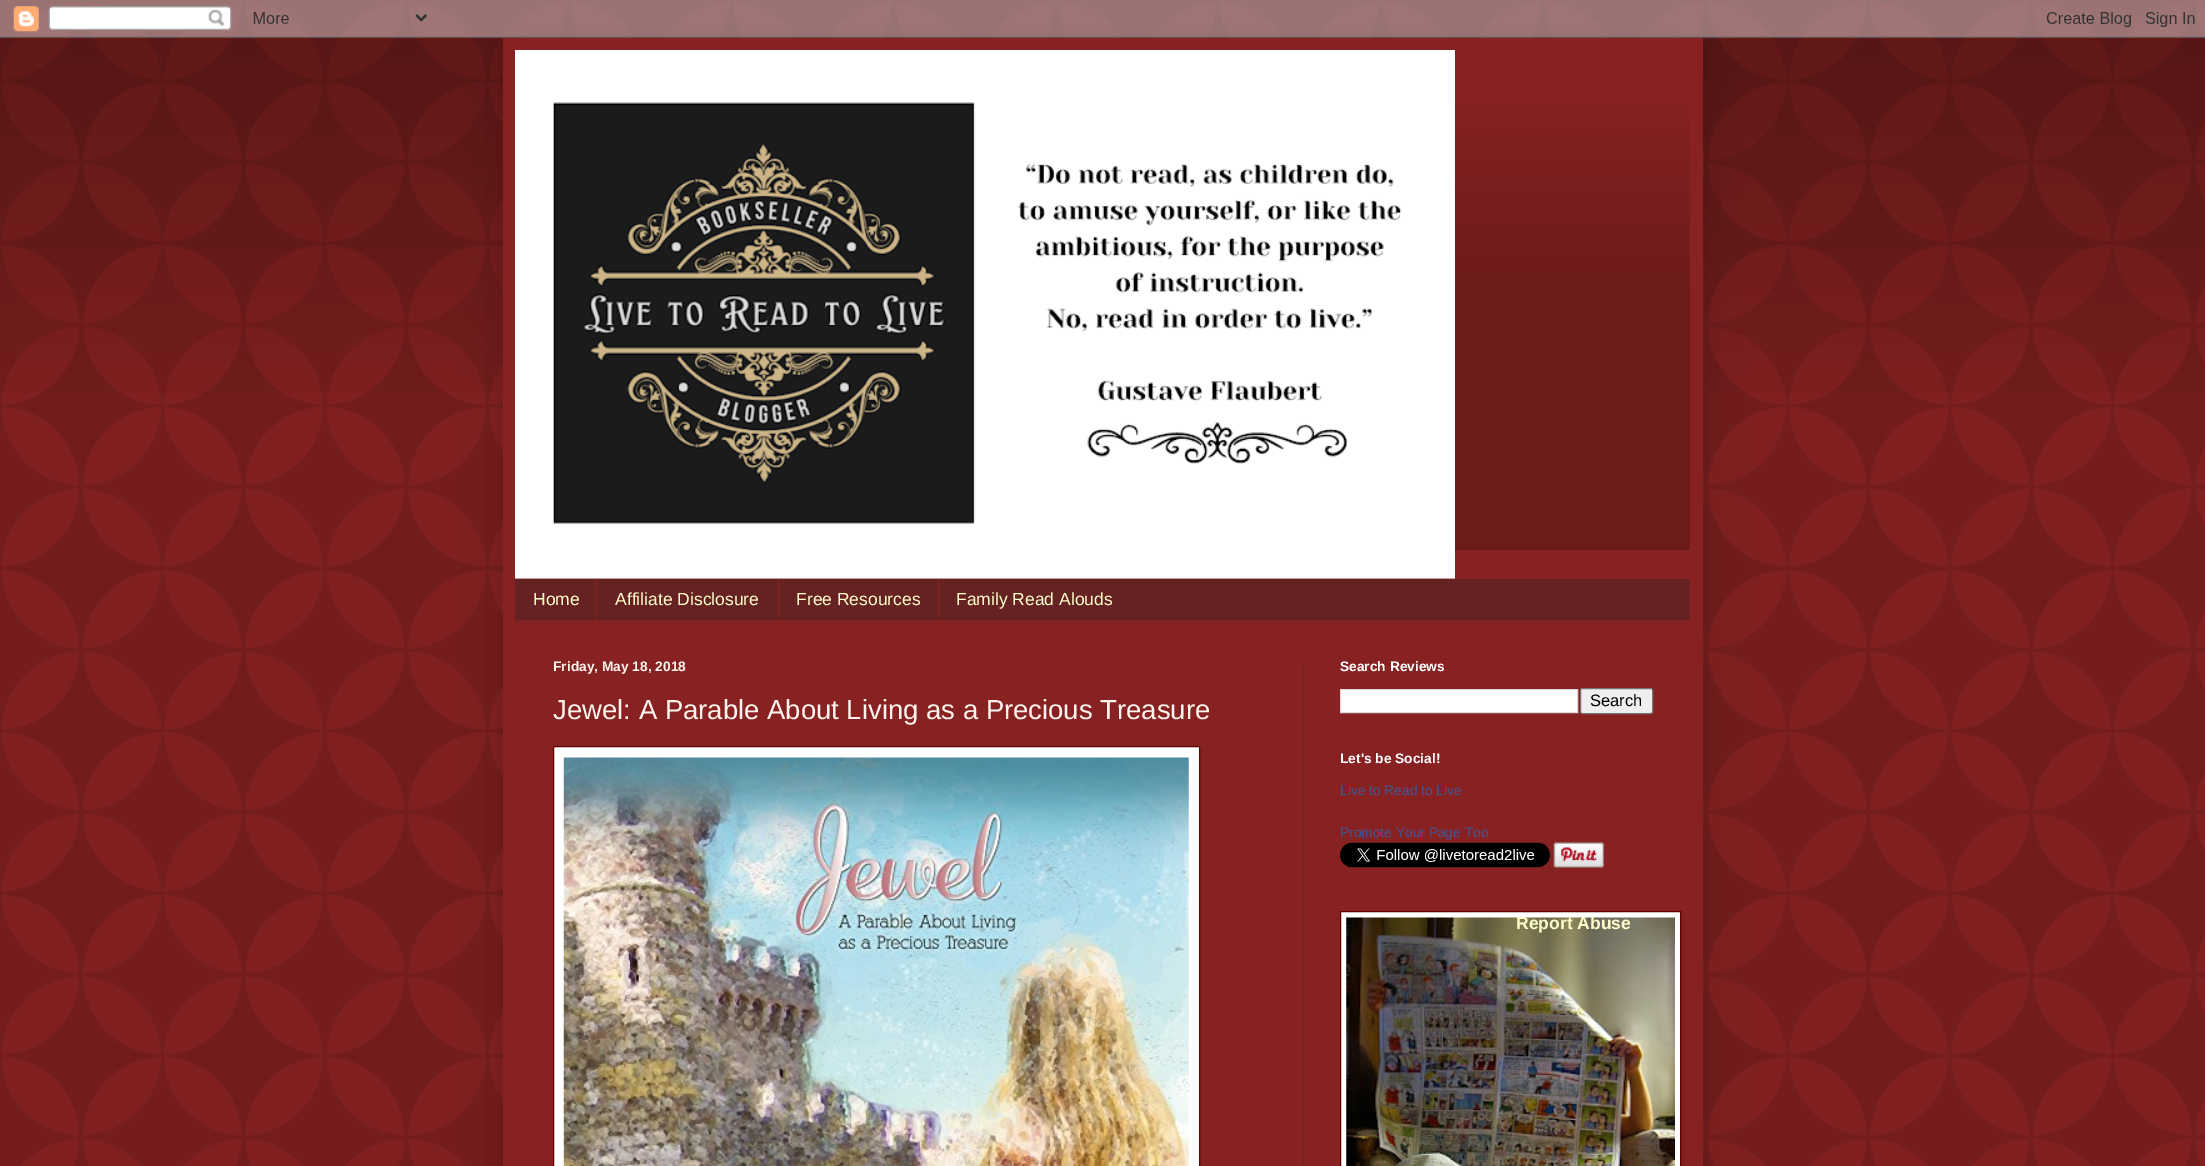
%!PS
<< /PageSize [2205 1166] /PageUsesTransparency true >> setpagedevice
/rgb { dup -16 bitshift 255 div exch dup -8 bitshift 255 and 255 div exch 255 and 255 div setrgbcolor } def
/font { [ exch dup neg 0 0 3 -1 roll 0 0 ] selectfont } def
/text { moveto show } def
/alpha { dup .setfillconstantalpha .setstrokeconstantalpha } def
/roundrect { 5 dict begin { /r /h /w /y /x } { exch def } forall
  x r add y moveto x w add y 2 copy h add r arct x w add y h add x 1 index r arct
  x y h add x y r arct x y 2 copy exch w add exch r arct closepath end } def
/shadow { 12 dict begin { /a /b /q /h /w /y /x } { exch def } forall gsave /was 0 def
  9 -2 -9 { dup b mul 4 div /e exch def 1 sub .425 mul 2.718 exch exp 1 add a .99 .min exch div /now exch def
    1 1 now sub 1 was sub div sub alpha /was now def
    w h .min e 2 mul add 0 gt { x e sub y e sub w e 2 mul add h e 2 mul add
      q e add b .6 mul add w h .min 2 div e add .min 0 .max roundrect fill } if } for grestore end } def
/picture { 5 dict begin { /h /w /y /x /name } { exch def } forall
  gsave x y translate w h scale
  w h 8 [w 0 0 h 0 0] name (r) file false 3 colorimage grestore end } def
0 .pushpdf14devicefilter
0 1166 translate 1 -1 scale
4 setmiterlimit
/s1 { /LiberationSans-Regular 17.5 font 16#FFFFCC rgb } def
/s2 { /LiberationSans-Bold 13.75 font 16#FFF5EE rgb } def
/s3 { /LiberationSans-Regular 27.5 font 16#FFF5EE rgb } def
/s4 { /LiberationSans-Bold 13.75 font 16#FFFFFF rgb } def
/s5 { /LiberationSans-Regular 16.5 font 16#000000 rgb } def
/s6 { /LiberationSans-Regular 13.75 font 16#3B5998 rgb } def
/s7 { /LiberationSans-Bold 17.5 font 16#FFFFCC rgb } def
16#882222 rgb
0 0 2205 1166 rectfill
(pic1.raw) 0 0 2205 1166 picture
(pic2.raw) 0 0 2205 393 picture
16#000000 rgb
503 38 1200 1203 0 25 0.15 shadow
(pic3.raw) 0 0 2205 38 picture
16#882222 rgb
503 38 1200 1128 rectfill
(pic4.raw) 1455 102 235 448 picture
(pic5.raw) 515 50 940 529 picture
16#662222 rgb
515 579 1175 41 rectfill
16#772222 rgb
515 620 1175 1 rectfill
s1
(Home) 533 605 text
16#882222 rgb
596 579 1 41 rectfill
s1
(Affiliate Disclosure) 615 605 text
16#882222 rgb
778 579 1 41 rectfill
s1
(Free Resources) 796 605 text
16#882222 rgb
938 579 1 41 rectfill
s1
(Family Read Alouds) 956 605 text
16#772222 rgb
1303 659 1 507 rectfill
s2
(Friday, May 18, 2018) 553 671 text
s3
(Jewel: A Parable About Living as a Precious Treasure) 553 719 text
16#000000 rgb
554 748 647 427 0 3 0.1 shadow
16#FFFFFF rgb
553.5 746.5 moveto 1199.5 746.5 lineto 1199.5 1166.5 lineto 553.5 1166.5 lineto closepath gsave fill grestore
16#660000 rgb
stroke
(pic6.raw) 563 757 626 409 picture
s4
(Search Reviews) 1340 671 text
1340.5 689.5 moveto 1577.5 689.5 lineto 1577.5 712.5 lineto 1340.5 712.5 lineto closepath gsave fill grestore
16#DDDDDD rgb
stroke
16#EFEFEF rgb
1580.5 688.5 72 25 2 roundrect gsave fill grestore
16#767676 rgb
stroke
s5
(Search) 1590 706 text
s4
(Let's be Social!) 1340 763 text
s6
(Live to Read to Live) 1340 795 text
(Promote Your Page Too) 1340 837 text
(pic7.raw) 1340 842 210 26 picture
(pic8.raw) 1553 842 51 26 picture
16#000000 rgb
1341 913 342 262 0 3 0.1 shadow
16#FFFFFF rgb
1340.5 911.5 moveto 1680.5 911.5 lineto 1680.5 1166.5 lineto 1340.5 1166.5 lineto closepath gsave fill grestore
16#660000 rgb
stroke
(pic9.raw) 1346 917 329 249 picture
s7
(Report Abuse) 1516 929 text
.poppdf14devicefilter showpage
